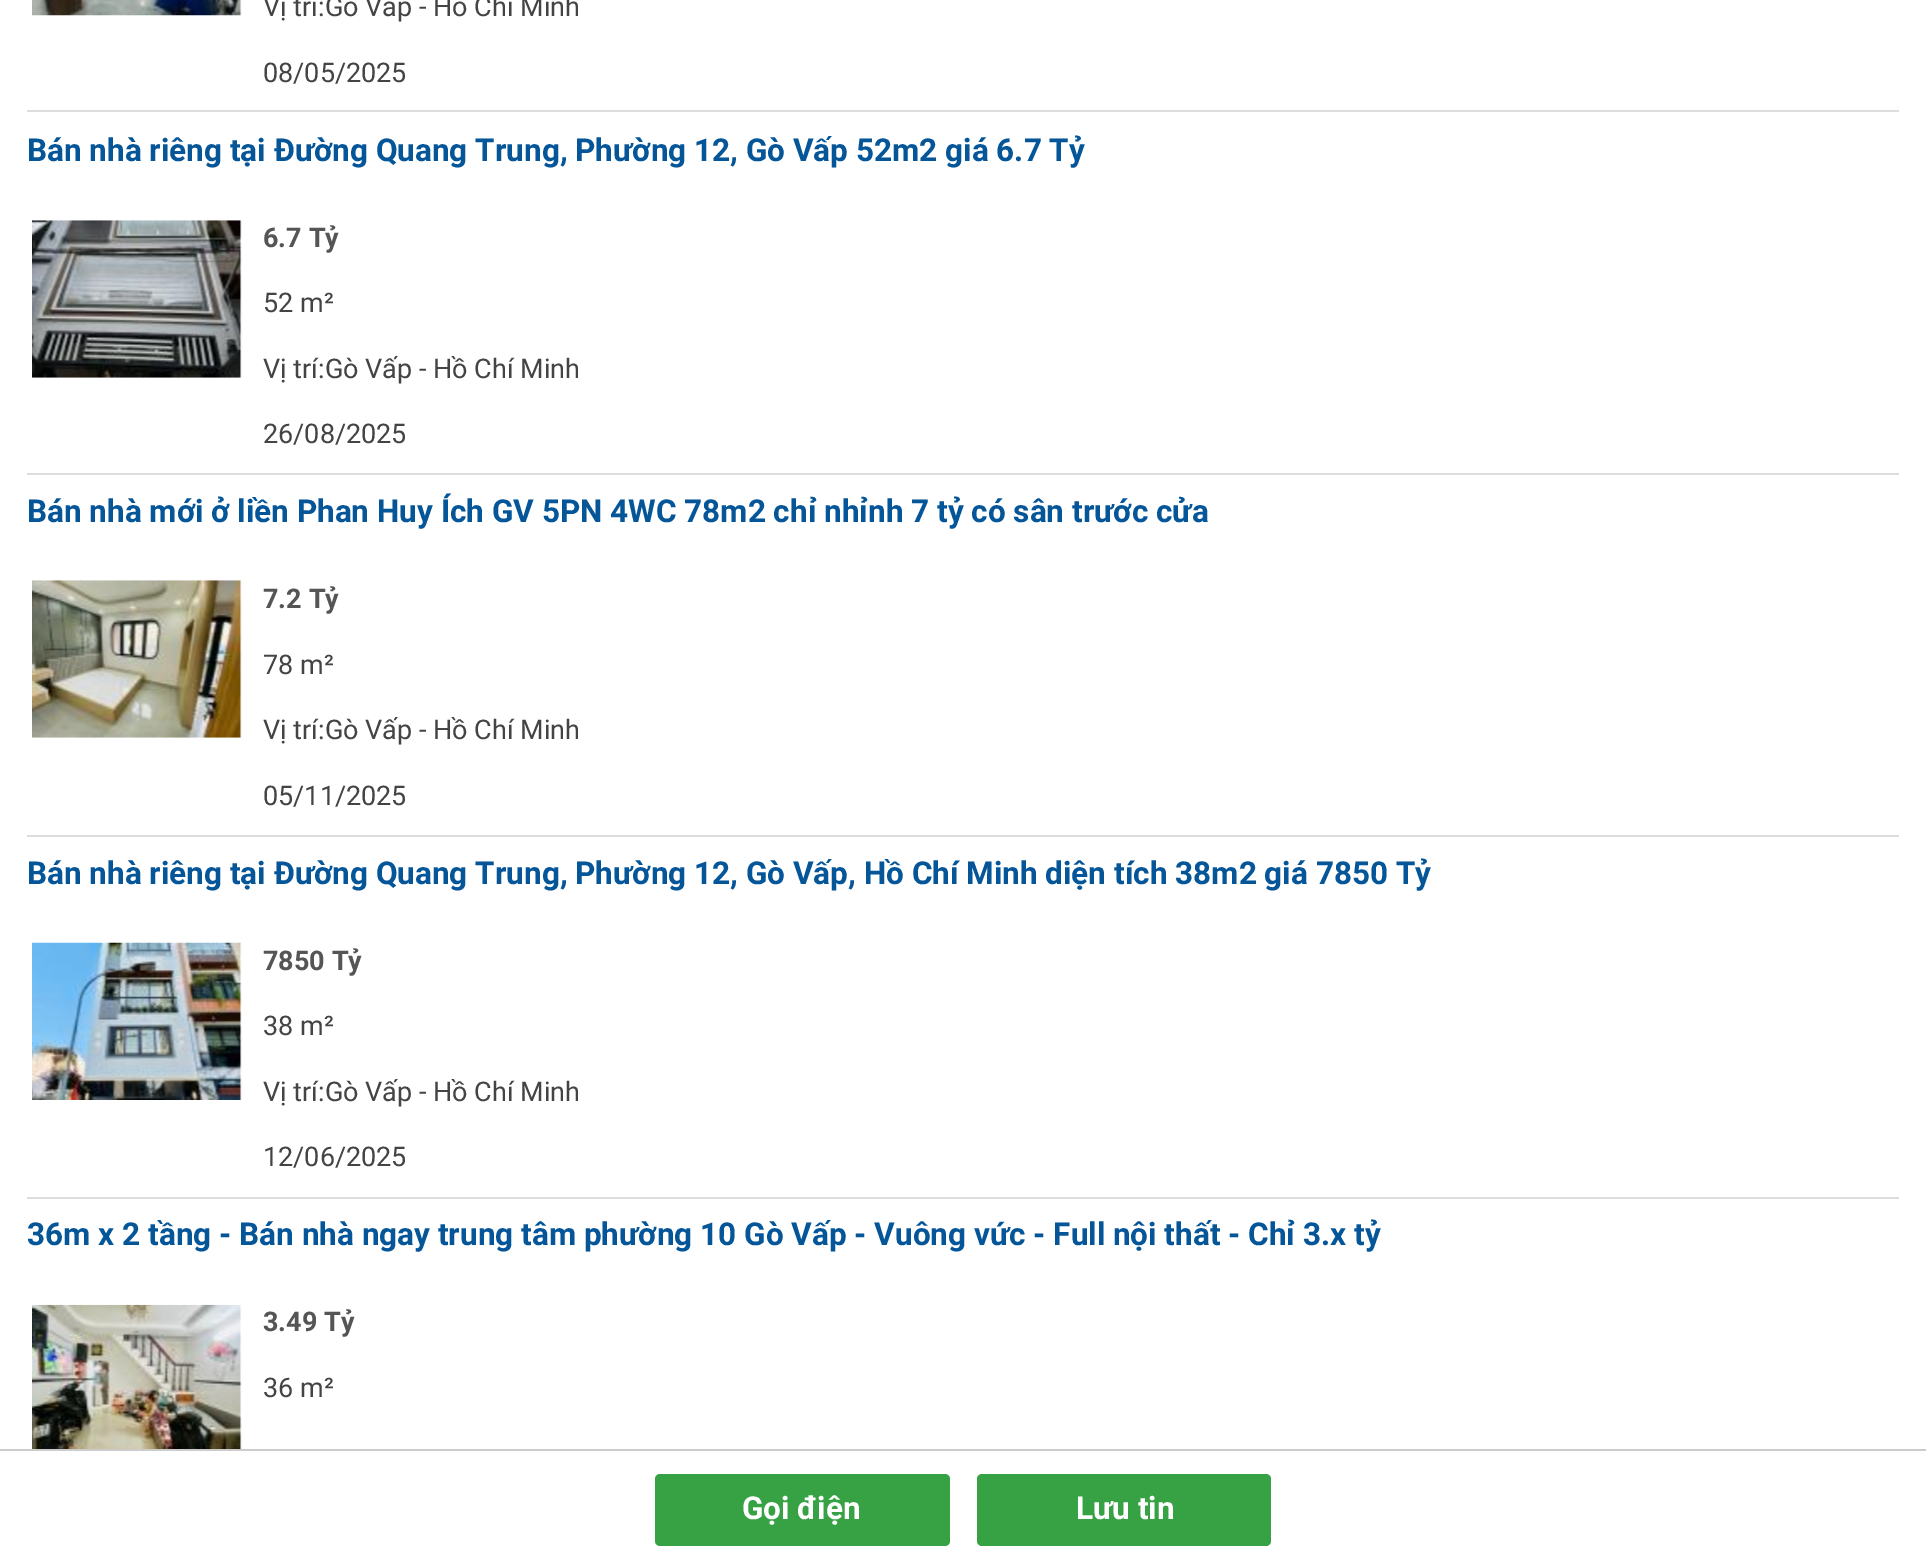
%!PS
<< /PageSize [1926 1567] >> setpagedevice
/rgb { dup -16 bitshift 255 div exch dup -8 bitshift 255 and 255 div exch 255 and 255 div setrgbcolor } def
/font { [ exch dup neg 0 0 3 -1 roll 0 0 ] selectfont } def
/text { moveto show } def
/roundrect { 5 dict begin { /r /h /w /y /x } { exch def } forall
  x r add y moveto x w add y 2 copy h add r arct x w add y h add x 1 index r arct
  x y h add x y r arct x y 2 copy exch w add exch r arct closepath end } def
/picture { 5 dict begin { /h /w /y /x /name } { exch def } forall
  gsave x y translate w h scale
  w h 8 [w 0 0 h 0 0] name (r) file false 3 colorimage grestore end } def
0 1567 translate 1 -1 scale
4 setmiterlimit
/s1 { /Roboto-Regular 27 font 16#444444 rgb } def
/s2 { /Roboto-Bold 31.5 font 16#055699 rgb } def
/s3 { /Roboto-Bold 27 font 16#555555 rgb } def
/s4 { /Roboto-Bold 31.5 font 16#FFFFFF rgb } def
16#FFFFFF rgb
0 0 1926 1567 rectfill
16#DDDDDD rgb
27 110 1872 2 rectfill
(pic1.raw) 32 0 210 16 picture
s1
(Vị trí:Gò Vấp - Hồ Chí Minh) 263 16 text
(08/05/2025) 263 82 text
16#DDDDDD rgb
27 473 1872 2 rectfill
s2
(Bán nhà riêng tại Đường Quang Trung, Phường 12, Gò Vấp 52m2 giá 6.7 Tỷ) 27 161 text
(pic2.raw) 32 220 210 158 picture
s3
(6.7 Tỷ) 263 247 text
s1
(52 m²) 263 312 text
(Vị trí:Gò Vấp - Hồ Chí Minh) 263 378 text
(26/08/2025) 263 443 text
16#DDDDDD rgb
27 835 1872 2 rectfill
s2
(Bán nhà mới ở liền Phan Huy Ích GV 5PN 4WC 78m2 chỉ nhỉnh 7 tỷ có sân trước cửa) 27 522 text
(pic3.raw) 32 580 210 158 picture
s3
(7.2 Tỷ) 263 608 text
s1
(78 m²) 263 674 text
(Vị trí:Gò Vấp - Hồ Chí Minh) 263 739 text
(05/11/2025) 263 805 text
16#DDDDDD rgb
27 1197 1872 2 rectfill
s2
(Bán nhà riêng tại Đường Quang Trung, Phường 12, Gò Vấp, Hồ Chí Minh diện tích 38m2 giá 7850 Tỷ) 27 884 text
(pic4.raw) 32 942 210 158 picture
s3
(7850 Tỷ) 263 970 text
s1
(38 m²) 263 1035 text
(Vị trí:Gò Vấp - Hồ Chí Minh) 263 1101 text
(12/06/2025) 263 1166 text
s2
(36m x 2 tầng - Bán nhà ngay trung tâm phường 10 Gò Vấp - Vuông vức - Full nội thất - Chỉ 3.x tỷ) 27 1245 text
(pic5.raw) 32 1304 210 145 picture
s3
(3.49 Tỷ) 263 1331 text
s1
(36 m²) 263 1397 text
16#CCCCCC rgb
0 1449 1926 2 rectfill
16#37A244 rgb
655 1474 295 72 5 roundrect fill
s4
(Gọi điện) 742 1519 text
16#37A244 rgb
977 1474 294 72 5 roundrect fill
s4
(Lưu tin) 1076 1519 text
showpage
